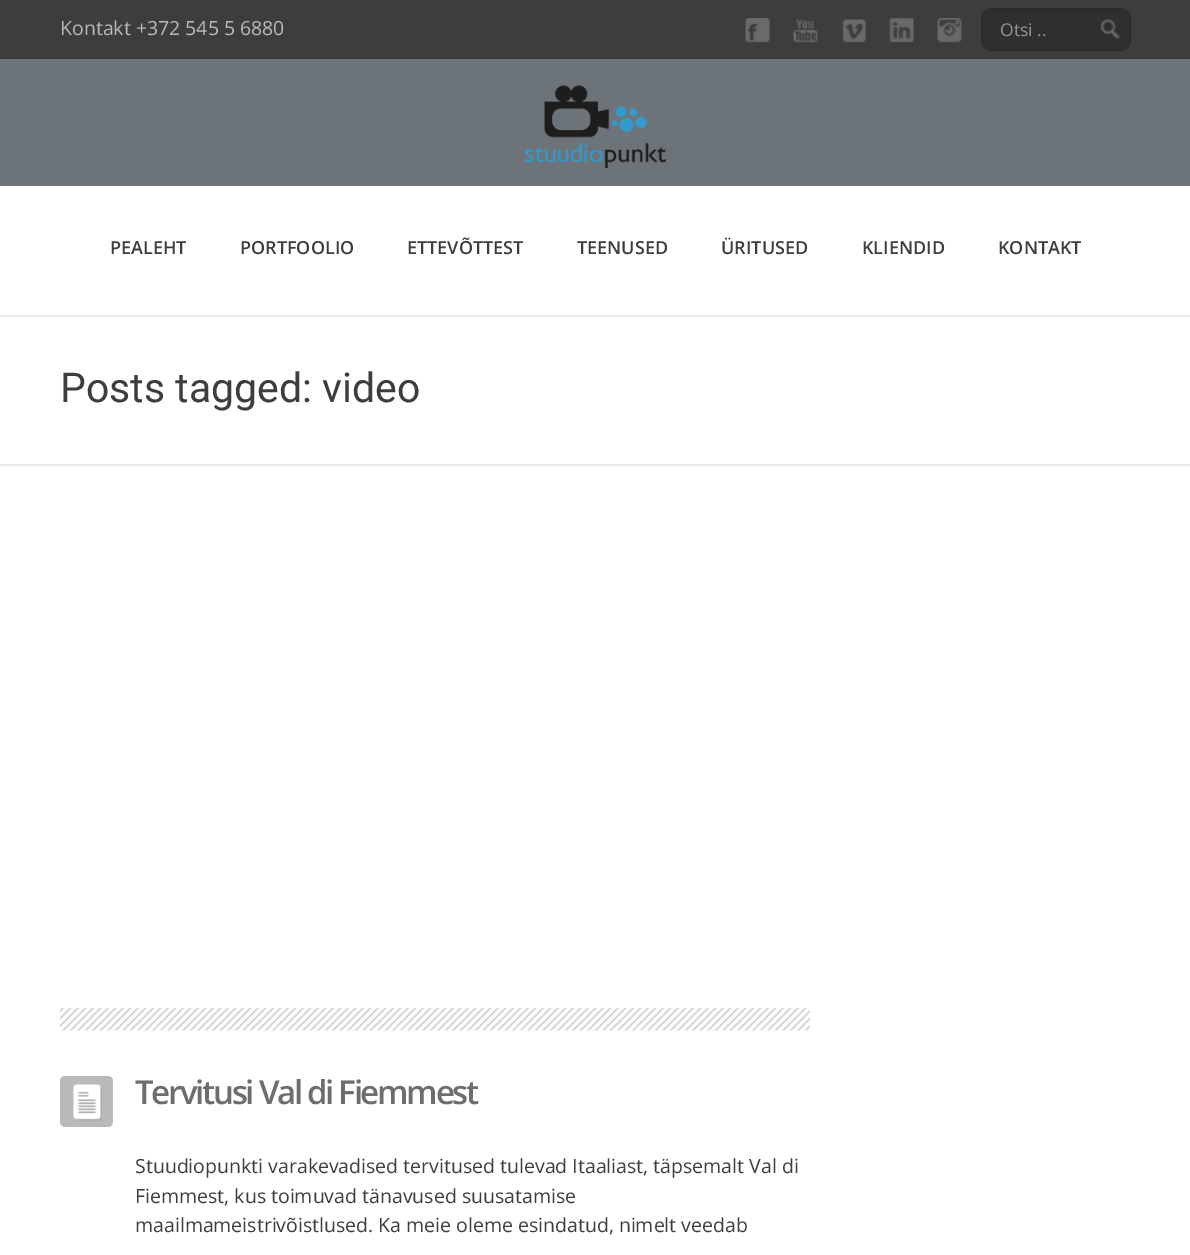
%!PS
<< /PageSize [1190 1255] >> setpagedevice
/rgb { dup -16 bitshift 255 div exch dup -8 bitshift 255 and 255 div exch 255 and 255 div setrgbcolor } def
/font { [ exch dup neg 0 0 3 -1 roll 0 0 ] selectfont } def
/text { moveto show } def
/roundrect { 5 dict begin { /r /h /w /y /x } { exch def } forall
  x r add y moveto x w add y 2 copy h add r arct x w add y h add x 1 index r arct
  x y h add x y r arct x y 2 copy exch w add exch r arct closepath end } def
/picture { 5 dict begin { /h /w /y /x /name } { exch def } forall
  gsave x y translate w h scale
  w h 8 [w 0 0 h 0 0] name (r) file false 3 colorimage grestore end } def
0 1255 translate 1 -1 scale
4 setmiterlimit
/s1 { /OpenSans-Regular 19.5 font 16#B9B9B9 rgb } def
/s2 { /OpenSans-Regular 17.5 font 16#949494 rgb } def
/s3 { /OpenSans-SemiBold 18 font 16#3D3D3D rgb } def
/s4 { /Roboto-Regular 41 font 16#3D3D3D rgb } def
/s5 { /OpenSans-Regular 19.5 font 16#3D3D3D rgb } def
16#FFFFFF rgb
0 0 1190 1255 rectfill
16#3D3D3D rgb
0 0 1190 59 rectfill
s1
(Kontakt +372 545 5 6880) 60 35 text
(pic1.raw) 745 18 25 25 picture
(pic2.raw) 793 19 25 24 picture
(pic3.raw) 842 19 24 24 picture
(pic4.raw) 889 18 25 25 picture
(pic5.raw) 937 18 25 25 picture
16#2F2F2F rgb
981 8 150 43 11 roundrect fill
(pic6.raw) 1100 19 20 21 picture
16#2C2C2C rgb
2 setlinewidth
982 9 148 41 10 roundrect stroke
s2
(Otsi ..) 1000 36 text
16#6C7479 rgb
0 59 1190 127 rectfill
(pic7.raw) 525 85 141 83 picture
s3
(PEALEHT) 110 254 text
(PORTFOOLIO) 240 254 text
(ETTEVÕTTEST) 407 254 text
(TEENUSED) 577 254 text
(ÜRITUSED) 721 254 text
(KLIENDID) 862 254 text
(KONTAKT) 998 254 text
16#EBEBEB rgb
0 315 1190 2 rectfill
0 464 1190 2 rectfill
s4
(Posts tagged: video) 60 402 text
(pic8.raw) 60 1008 750 23 picture
16#B9B9B9 rgb
60 1076 53 51 5 roundrect fill
(pic9.raw) 73 1084 29 37 picture
/OpenSans-SemiBold 33 font
16#6D6D6D rgb
135 1104 moveto -2.3 0 (Tervitusi Val di Fiemmest) ashow
s5
(Stuudiopunkti varakevadised tervitused tulevad Itaaliast, täpsemalt Val di) 135 1173 text
(Fiemmest, kus toimuvad tänavused suusatamise) 135 1203 text
(maailmameistrivõistlused. Ka meie oleme esindatud, nimelt veedab) 135 1232 text
showpage
